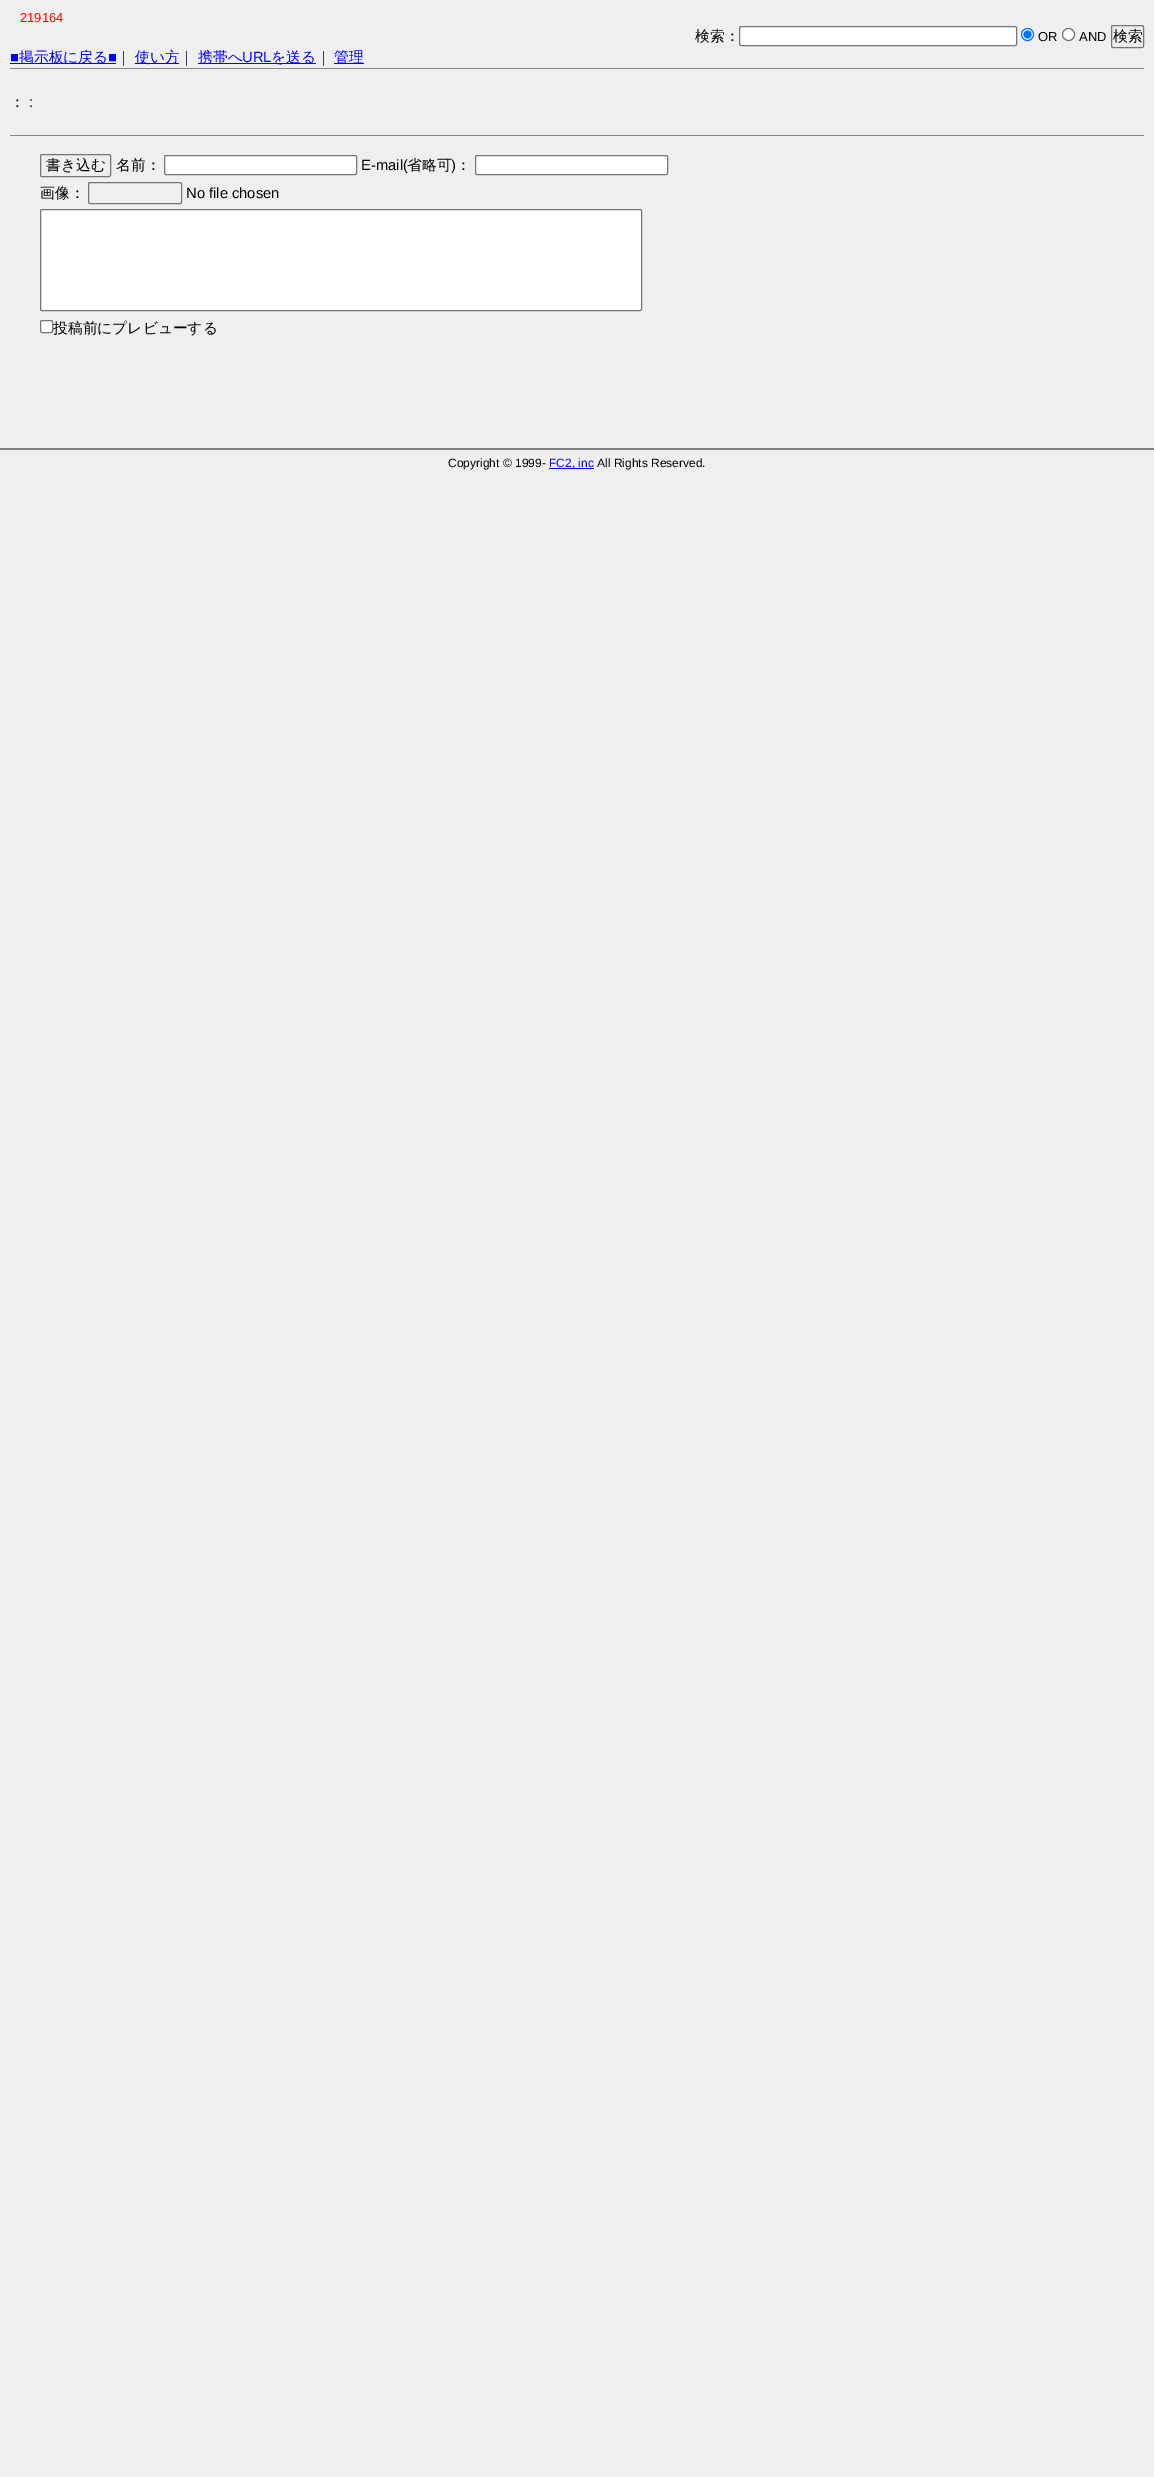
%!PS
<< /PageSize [1154 2477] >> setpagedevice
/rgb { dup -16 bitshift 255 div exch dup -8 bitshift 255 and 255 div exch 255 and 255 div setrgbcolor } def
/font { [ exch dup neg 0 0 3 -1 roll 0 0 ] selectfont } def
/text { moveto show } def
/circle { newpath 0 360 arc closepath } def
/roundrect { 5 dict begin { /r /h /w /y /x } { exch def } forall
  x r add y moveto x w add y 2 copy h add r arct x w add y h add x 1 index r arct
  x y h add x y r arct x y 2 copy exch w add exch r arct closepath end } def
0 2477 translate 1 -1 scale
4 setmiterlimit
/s1 { /LiberationSans-Regular 13 font 16#FF0000 rgb } def
/s2 { /WenQuanYiZenHei-Medium 14.75 font 16#000000 rgb } def
/s3 { /LiberationSans-Regular 13 font 16#000000 rgb } def
/s4 { /LiberationSans-Regular 14.75 font 16#0000FF rgb } def
/s5 { /WenQuanYiZenHei-Medium 14.75 font 16#0000FF rgb } def
/s6 { /LiberationSans-Regular 14.75 font 16#000000 rgb } def
/s7 { /LiberationSans-Regular 12 font 16#000000 rgb } def
/s8 { /LiberationSans-Regular 12 font 16#0000FF rgb } def
16#EFEFEF rgb
0 0 1154 2477 rectfill
s1
(219164) 20 22 text
s2
(検索：) 695 41 text
16#FFFFFF rgb
739.5 26.5 277 19 1.5 roundrect gsave fill grestore
16#767676 rgb
stroke
16#FFFFFF rgb
1027.5 34.5 6 circle gsave fill grestore
16#0075FF rgb
stroke
1027.5 34.5 4 circle fill
s3
(OR) 1038 41 text
16#FFFFFF rgb
1068.5 34.5 6 circle gsave fill grestore
16#767676 rgb
stroke
s3
(AND) 1079 41 text
16#767676 rgb
1111.5 25.5 32 22 1.5 roundrect stroke
s2
(検索) 1113 41 text
s4
(■) 10 62 text
10 63 106 1 rectfill
s5
(掲示板に戻る) 19 62 text
s4
(■) 108 62 text
s2
(｜) 116 62 text
16#0000FF rgb
135 63 44 1 rectfill
(使い方) 135 62 text
s2
(｜) 179 62 text
16#0000FF rgb
198 63 118 1 rectfill
(携帯へ) 198 62 text
s4
(URL) 242 62 text
s5
(を送る) 271 62 text
s2
(｜) 316 62 text
16#0000FF rgb
334 63 30 1 rectfill
(管理) 334 62 text
16#888888 rgb
10 68 1134 1 rectfill
s2
(：) 10 107 text
s6
(:) 29 107 text
16#888888 rgb
10 135 1134 1 rectfill
16#767676 rgb
40.5 154.5 70 22 1.5 roundrect stroke
s2
(書き込む) 46 170 text
(名前：) 116 170 text
16#FFFFFF rgb
164.5 155.5 192 19 1.5 roundrect gsave fill grestore
16#767676 rgb
stroke
s6
(E-mail\() 361 170 text
s2
(省略可) 407 170 text
s6
(\)) 451 170 text
s2
(：) 456 170 text
16#FFFFFF rgb
475.5 155.5 192 19 1.5 roundrect gsave fill grestore
16#767676 rgb
stroke
s2
(画像：) 40 198 text
16#767676 rgb
88.5 182.5 93 21 1.5 roundrect stroke
s6
(No file chosen) 186 198 text
16#FFFFFF rgb
40.5 209.5 601 101 1.5 roundrect gsave fill grestore
16#767676 rgb
stroke
16#FFFFFF rgb
40.5 320.5 12 12 1.5 roundrect gsave fill grestore
16#767676 rgb
stroke
s2
(投稿前にプレビューする) 53 333 text
16#FFFFFF rgb
211 361 1 1 rectfill
942 437 1 1 rectfill
16#808080 rgb
0 448 1154 2 rectfill
s7
(Copyright © 1999-) 448 467 text
16#0000FF rgb
549 468 45 1 rectfill
(FC2, inc) 549 467 text
s7
(All Rights Reserved.) 597 467 text
showpage
